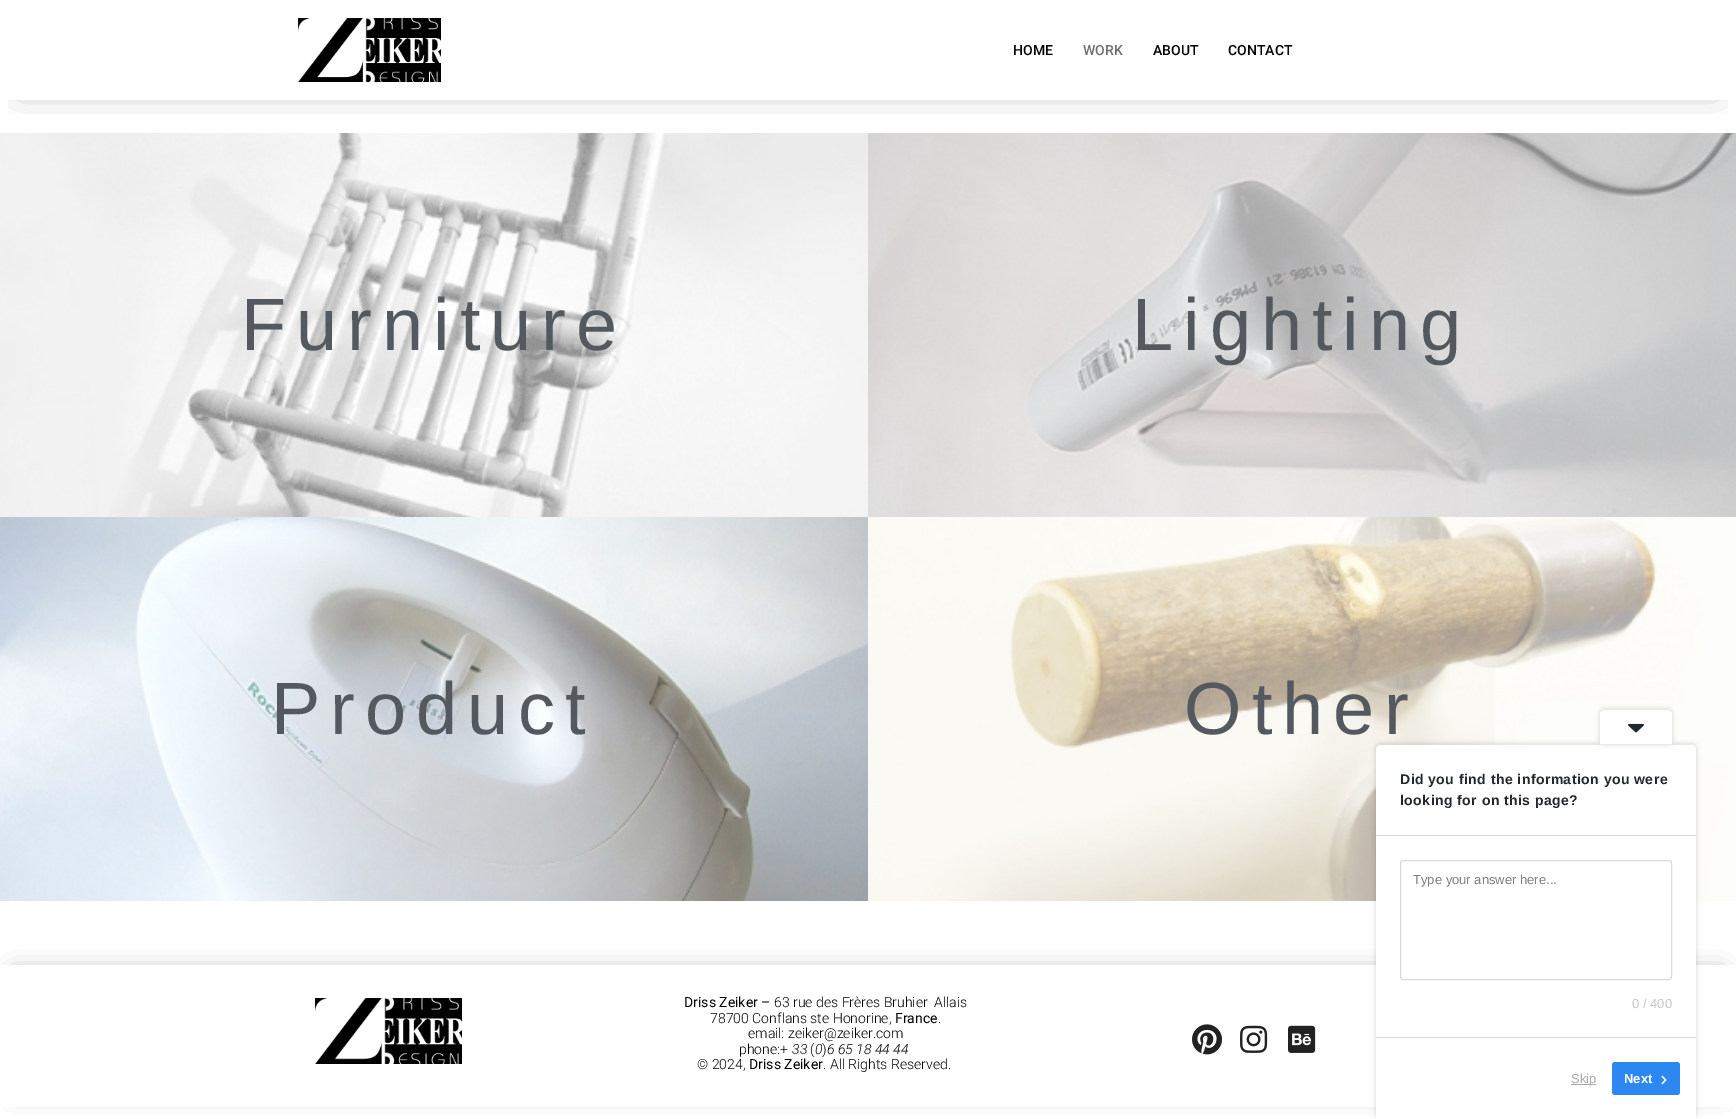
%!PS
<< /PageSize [1736 1119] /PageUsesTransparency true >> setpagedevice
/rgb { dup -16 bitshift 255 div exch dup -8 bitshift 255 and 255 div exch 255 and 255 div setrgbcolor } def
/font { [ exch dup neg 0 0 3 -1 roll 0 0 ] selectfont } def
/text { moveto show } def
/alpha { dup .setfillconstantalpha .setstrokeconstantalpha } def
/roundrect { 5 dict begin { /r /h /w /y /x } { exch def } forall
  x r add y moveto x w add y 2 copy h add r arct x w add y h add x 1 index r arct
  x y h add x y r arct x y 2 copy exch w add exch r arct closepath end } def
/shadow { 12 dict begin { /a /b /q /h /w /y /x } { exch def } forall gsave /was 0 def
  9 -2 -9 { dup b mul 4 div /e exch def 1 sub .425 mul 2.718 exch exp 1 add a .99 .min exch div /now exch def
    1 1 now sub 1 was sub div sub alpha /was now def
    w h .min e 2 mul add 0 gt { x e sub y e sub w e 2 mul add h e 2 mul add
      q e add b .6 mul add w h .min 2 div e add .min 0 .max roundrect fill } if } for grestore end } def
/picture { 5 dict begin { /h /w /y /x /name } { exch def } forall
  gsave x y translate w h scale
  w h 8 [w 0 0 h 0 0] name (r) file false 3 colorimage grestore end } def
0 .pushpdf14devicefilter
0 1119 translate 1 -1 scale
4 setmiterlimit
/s1 { /Roboto-Medium 14 font 16#000107 rgb } def
/s2 { /Roboto-Medium 14 font 16#707070 rgb } def
/s3 { /Roboto-Regular 14 font 16#000000 rgb } def
/s4 { /Roboto-Light 14 font 16#000000 rgb } def
/s5 { /Roboto-LightItalic 14 font 16#000000 rgb } def
/s6 { /LiberationSans-Regular 13 font 16#7E7E7E rgb } def
/s7 { /LiberationSans-Regular 13 font 16#C4C4C4 rgb } def
/s8 { /LiberationSans-Regular 13 font 16#AAAAAA rgb } def
/s9 { /LiberationSans-Bold 13 font 16#FFFFFF rgb } def
16#FFFFFF rgb
0 0 1736 1119 rectfill
(pic2.raw) 0 133 868 384 picture
(pic3.raw) 868 133 868 384 picture
gsave
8 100 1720 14 rectclip
16#000000 rgb
20 20 1696 60 0 19.5 0.5 shadow
grestore
(pic1.raw) 298 18 143 64 picture
s1
(HOME) 1013 55 text
s2
(WORK) 1083 55 text
s1
(ABOUT) 1153 55 text
(CONTACT) 1228 55 text
/LiberationSans-Regular 74 font
16#54595F rgb
241 350 moveto 10 0 (Furniture) ashow
1132 350 moveto 10 0 (Lighting) ashow
(pic4.raw) 0 517 868 384 picture
271 734 moveto 10 0 (Product) ashow
(pic5.raw) 868 517 868 384 picture
1184 734 moveto 10 0 (Other) ashow
gsave
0 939 moveto 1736 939 lineto 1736 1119 lineto 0 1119 lineto closepath 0 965 moveto 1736 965 lineto 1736 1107 lineto 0 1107 lineto closepath eoclip newpath
16#000000 rgb
15 976 1706 112 0 12 0.5 shadow
grestore
(pic6.raw) 315 998 147 66 picture
s3
(Driss Zeiker –) 684 1007 text
s4
(63 rue des Frères Bruhier  Allais) 774 1007 text
(78700 Conflans ste Honorine,) 710 1023 text
s3
(France) 895 1023 text
s4
(.) 938 1023 text
(email: zeiker@zeiker.com) 748 1038 text
(phone:+) 739 1054 text
s5
(33) 792 1054 text
s4
(\() 810 1054 text
s5
(0) 815 1054 text
s4
(\)) 822 1054 text
s5
(6 65 18 44 44) 827 1054 text
s4
(© 2024,) 697 1069 text
s3
(Driss Zeiker) 749 1069 text
s4
(. All Rights Reserved.) 823 1069 text
(pic7.raw) 1192 1024 30 31 picture
(pic8.raw) 1240 1025 28 28 picture
(pic9.raw) 1288 1025 28 28 picture
1374 742 324 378 7 1.5 0.07 shadow
16#FFFFFF rgb
1381 745 moveto 1691 745 lineto 1694 745 1696 747 1696 750 curveto 1696 1119 lineto 1376 1119 lineto 1376 750 lineto 1376 747 1378 745 1381 745 curveto closepath fill
gsave
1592 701 moveto 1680 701 lineto 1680 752 lineto 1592 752 lineto closepath 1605 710 moveto 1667 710 lineto 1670 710 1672 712 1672 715 curveto 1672 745 lineto 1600 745 lineto 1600 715 lineto 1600 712 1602 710 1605 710 curveto closepath eoclip newpath
16#000000 rgb
1598 707 76 39 7 1.5 0.07 shadow
grestore
1605 710 moveto 1667 710 lineto 1670 710 1672 712 1672 715 curveto 1672 744 lineto 1600 744 lineto 1600 715 lineto 1600 712 1602 710 1605 710 curveto closepath fill
(pic10.raw) 1628 723 16 10 picture
/LiberationSans-Bold 14 font
16#23282D rgb
1400 784 moveto 0.45 0 (Did you find the information you were) ashow
1400 805 moveto 0.45 0 (looking for on this page?) ashow
16#D9D9D9 rgb
1376 835 320 1 rectfill
1376 1037 320 1 rectfill
16#DADADA rgb
1400.5 860.5 271 119 2.5 roundrect stroke
s6
(Type your answer here...) 1413 884 text
s7
(0 / 400) 1632 1008 text
16#AAAAAA rgb
1571 1084 25 1 rectfill
(Skip) 1571 1083 text
16#2D87F1 rgb
1612 1062 68 33 3 roundrect fill
s9
(Next) 1624 1083 text
(pic11.raw) 1661 1075 6 10 picture
.poppdf14devicefilter showpage
